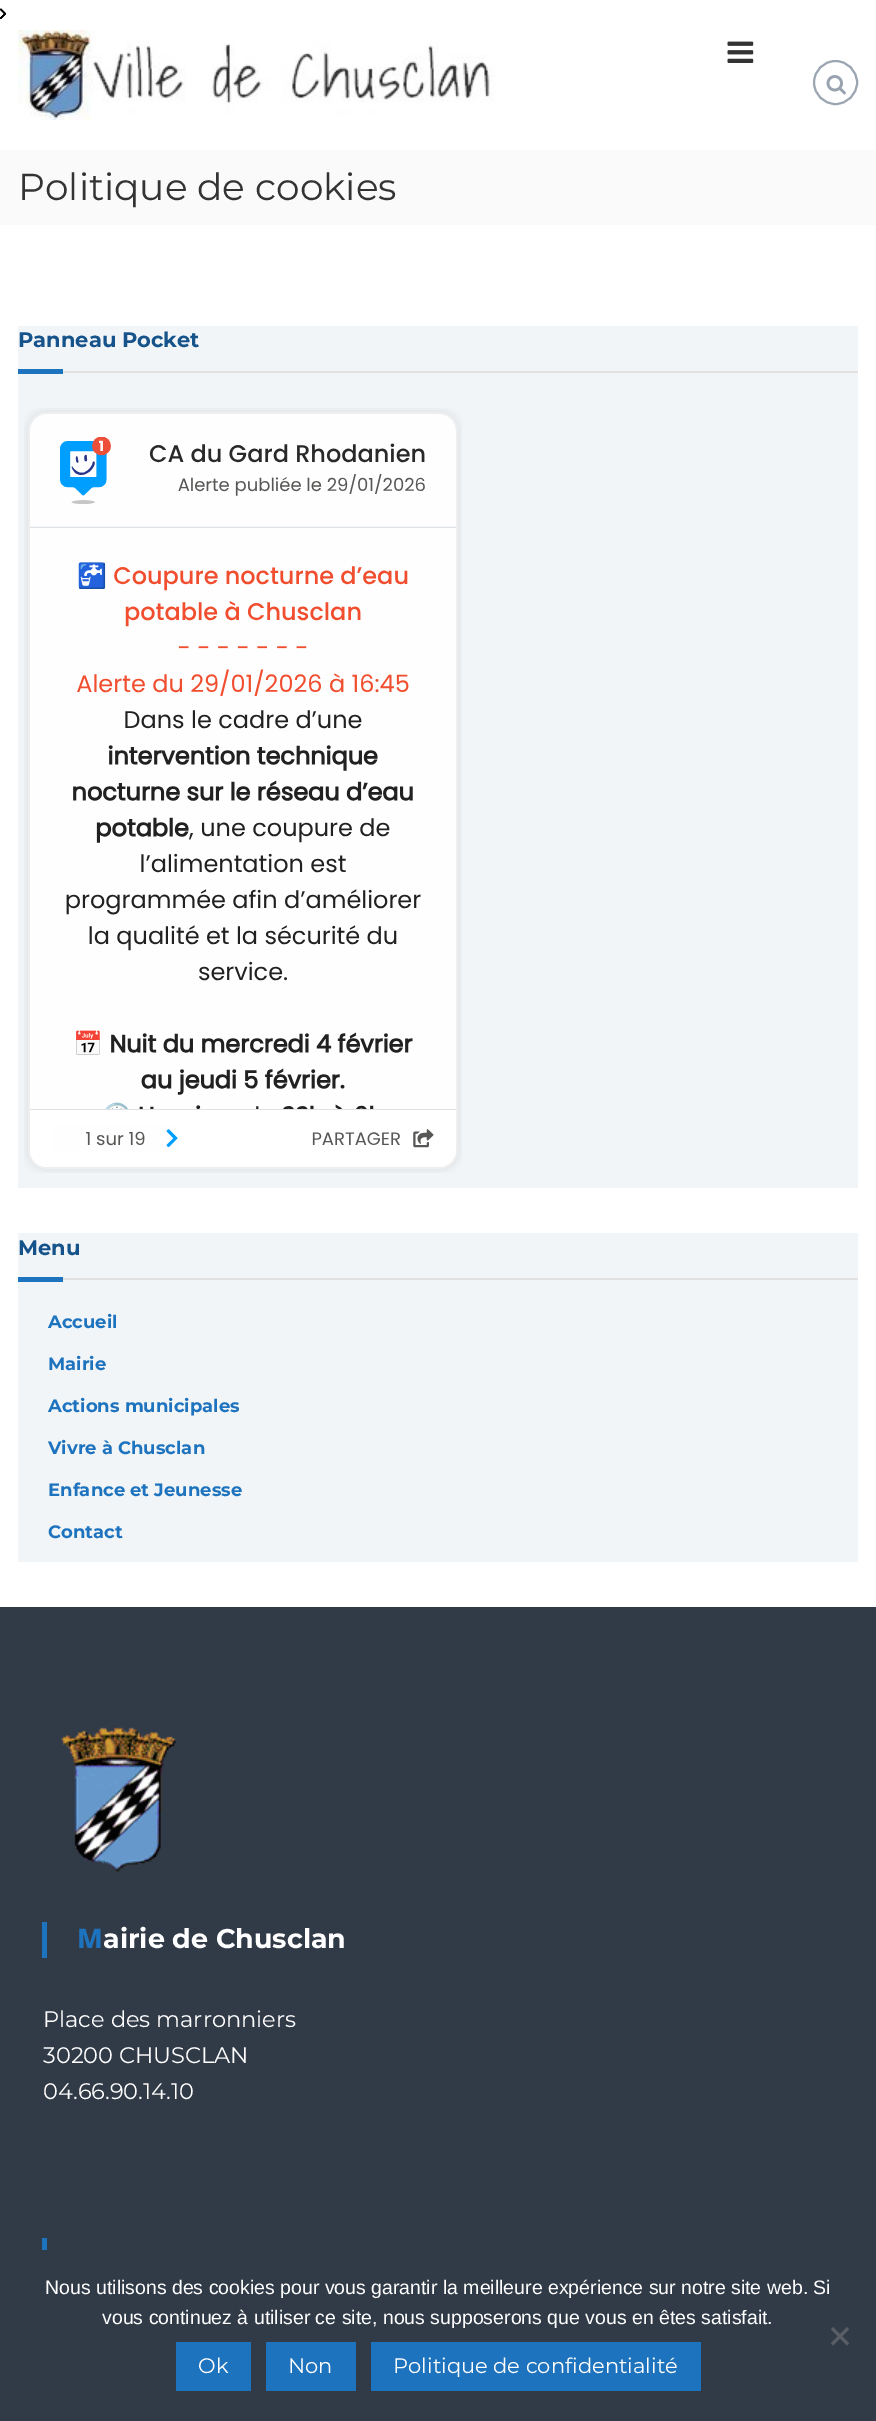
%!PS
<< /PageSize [876 2421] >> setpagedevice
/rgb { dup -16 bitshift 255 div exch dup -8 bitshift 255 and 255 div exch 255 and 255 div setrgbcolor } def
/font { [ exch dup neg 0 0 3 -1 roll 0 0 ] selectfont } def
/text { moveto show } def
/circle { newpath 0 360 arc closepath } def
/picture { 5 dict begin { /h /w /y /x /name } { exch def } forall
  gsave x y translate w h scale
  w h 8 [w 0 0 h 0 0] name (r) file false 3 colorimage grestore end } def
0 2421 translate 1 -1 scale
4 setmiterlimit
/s1 { /Montserrat-Regular 37.5 font 16#333333 rgb } def
/s2 { /Montserrat-Bold 21 font 16#15538A rgb } def
/s3 { /Montserrat-Bold 18 font 16#1E73BE rgb } def
/s4 { /NotoSans-ExtraBold 27 font 16#1E73BE rgb } def
/s5 { /Montserrat-Bold 27 font 16#FFFFFF rgb } def
/s6 { /Montserrat-Regular 22.5 font 16#FFFFFF rgb } def
/s7 { /LiberationSans-Regular 19.5 font 16#FFFFFF rgb } def
/s8 { /Montserrat-Regular 21 font 16#FFFFFF rgb } def
16#FFFFFF rgb
0 0 876 2421 rectfill
(pic1.raw) 18 30 477 90 picture
(pic2.raw) 727 41 27 22 picture
16#9CA6B2 rgb
2 setlinewidth
835.5 82.5 21.5 circle stroke
(pic3.raw) 826 75 20 20 picture
16#FAFAFA rgb
0 150 876 75 rectfill
s1
(Politique de cookies) 18 200 text
16#F1F5F8 rgb
18 326 840 862 rectfill
s2
(Panneau Pocket) 18 347 text
16#1E73BE rgb
18 369 45 5 rectfill
16#E1E1E1 rgb
63 371 795 2 rectfill
(pic4.raw) 24 408 438 765 picture
16#F1F5F8 rgb
18 1233 840 329 rectfill
s2
(Menu) 18 1255 text
16#1E73BE rgb
18 1277 45 5 rectfill
16#E1E1E1 rgb
63 1278 795 2 rectfill
(pic5.raw) 0 8 6 11 picture
s3
(Accueil) 48 1328 text
(pic6.raw) 0 8 6 11 picture
(Mairie) 48 1370 text
(pic7.raw) 0 8 6 11 picture
(Actions municipales) 48 1412 text
(pic8.raw) 0 8 6 11 picture
(Vivre à Chusclan) 48 1454 text
(pic9.raw) 0 8 6 11 picture
(Enfance et Jeunesse) 48 1496 text
(pic10.raw) 0 8 6 11 picture
(Contact) 48 1538 text
16#313B48 rgb
0 1607 876 814 rectfill
(pic11.raw) 61 1727 115 146 picture
16#1E73BE rgb
42 1922 5 36 rectfill
s4
(M) 77 1948 text
s5
(airie de Chusclan) 103 1948 text
s6
(Place des marronniers) 43 2027 text
(30200 CHUSCLAN) 43 2063 text
(04.66.90.14.10) 43 2099 text
16#1E73BE rgb
42 2238 5 12 rectfill
s7
(Nous utilisons des cookies pour vous garantir la meilleure expérience sur notre site web. Si) 45 2294 text
(vous continuez à utiliser ce site, nous supposerons que vous en êtes satisfait.) 102 2324 text
16#595E64 rgb
847 2327 moveto 849 2329.5 lineto 833 2345.5 lineto 831 2343 lineto closepath fill
831 2329.5 moveto 833 2327 lineto 849 2343 lineto 847 2345.5 lineto closepath fill
16#1E73BE rgb
176 2342 75 49 rectfill
s8
(Ok) 198 2373 text
16#1E73BE rgb
266 2342 90 49 rectfill
s8
(Non) 288 2373 text
16#1E73BE rgb
371 2342 330 49 rectfill
s8
(Politique de confidentialité) 393 2373 text
showpage
